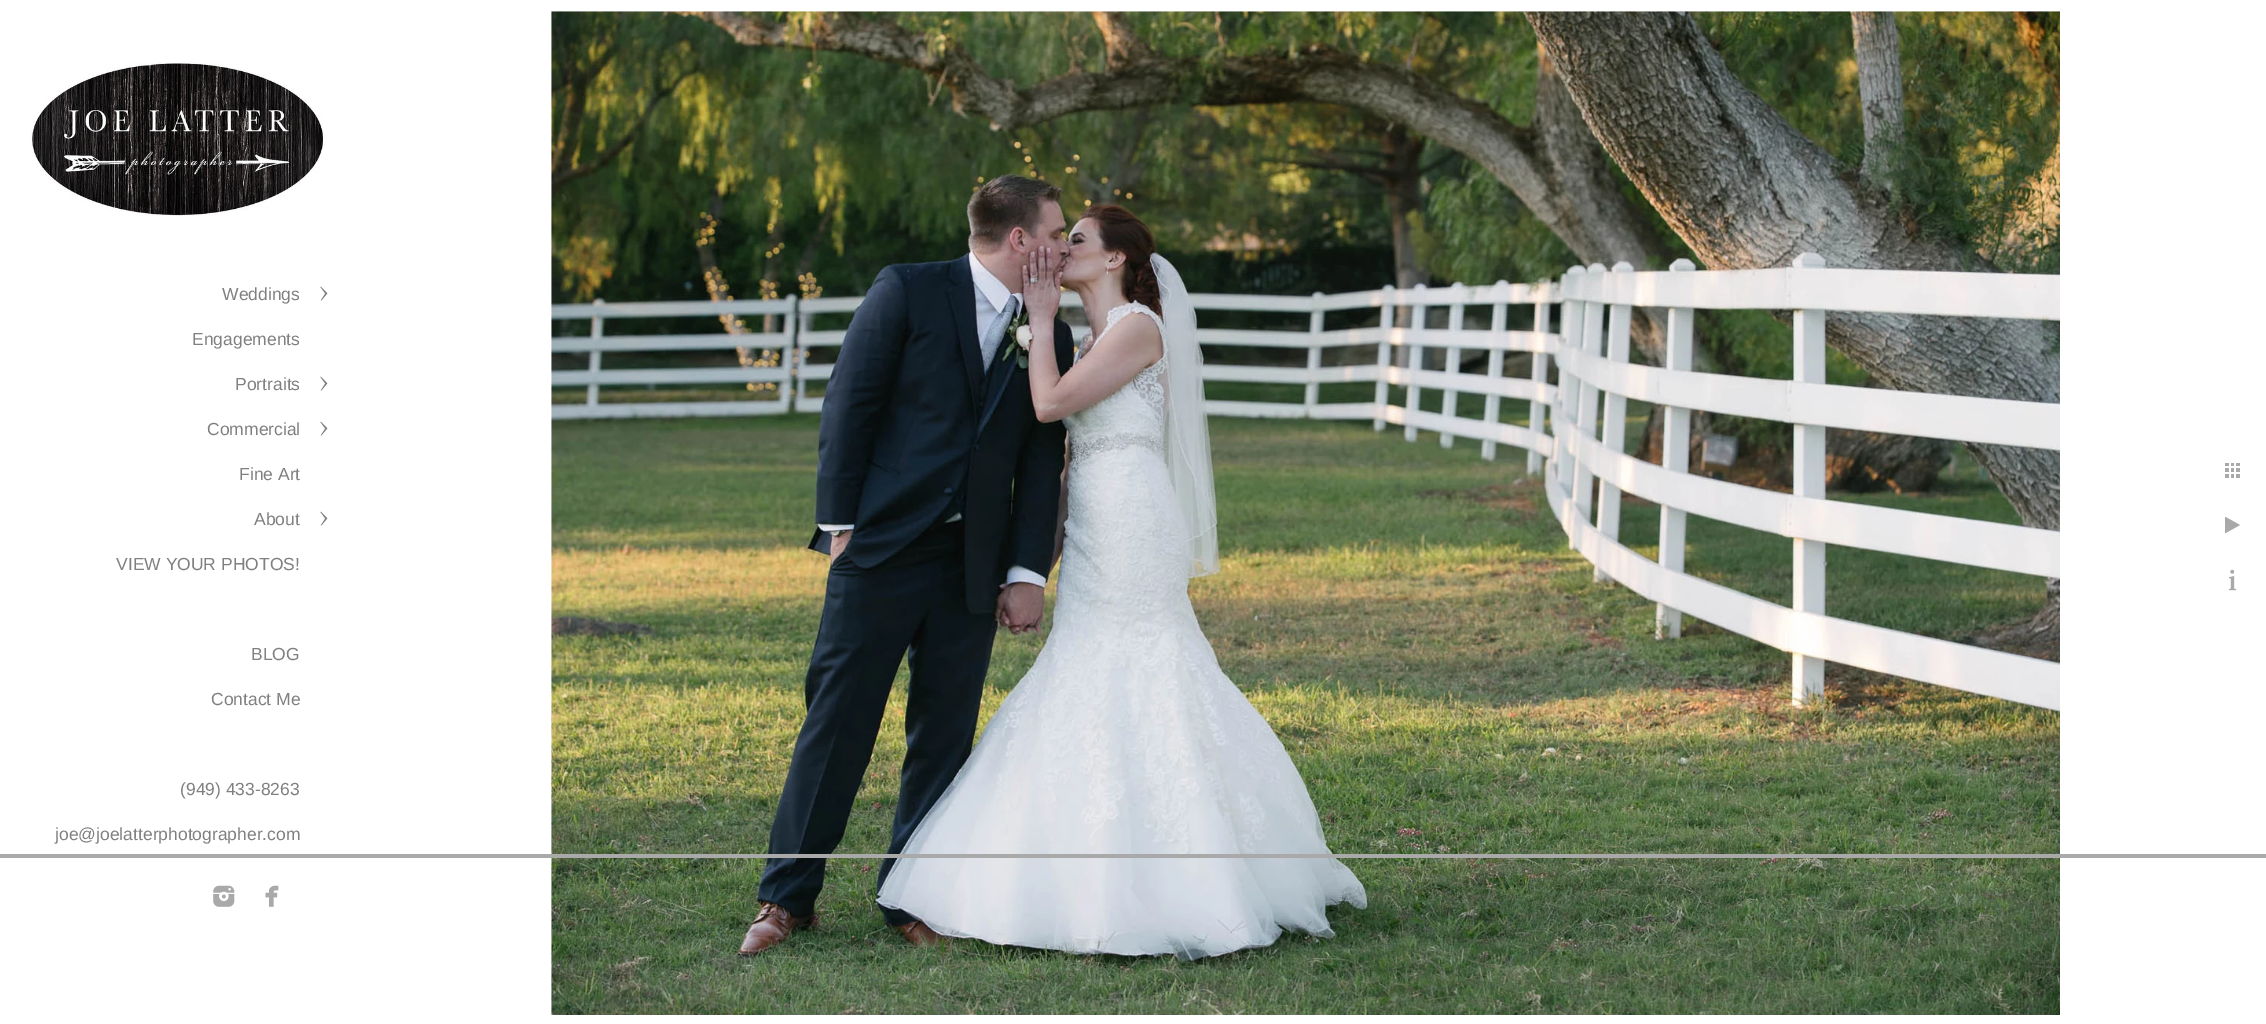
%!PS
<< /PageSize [2266 1024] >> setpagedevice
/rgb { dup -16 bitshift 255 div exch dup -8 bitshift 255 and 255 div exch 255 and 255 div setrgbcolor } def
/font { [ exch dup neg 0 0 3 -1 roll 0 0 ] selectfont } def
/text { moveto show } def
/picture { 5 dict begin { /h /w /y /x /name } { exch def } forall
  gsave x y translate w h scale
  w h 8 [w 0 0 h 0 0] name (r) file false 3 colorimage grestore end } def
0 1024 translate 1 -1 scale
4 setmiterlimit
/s1 { /LiberationSans-Regular 17.5 font 16#808080 rgb } def
16#FFFFFF rgb
0 0 2266 1024 rectfill
(pic1.raw) 31 62 294 154 picture
s1
(Weddings) 222 300 text
(pic2.raw) 320 286 8 15 picture
(Engagements) 192 345 text
(Portraits) 235 390 text
(pic2.raw) 320 376 8 15 picture
(Commercial) 207 435 text
(pic2.raw) 320 421 8 15 picture
(Fine Art) 239 480 text
(About) 254 525 text
(pic2.raw) 320 511 8 15 picture
(VIEW YOUR PHOTOS!) 116 570 text
(BLOG) 251 660 text
(Contact Me) 211 705 text
(\(949\) 433-8263) 180 795 text
(joe@joelatterphotographer.com) 55 840 text
(pic3.raw) 213 885 22 22 picture
(pic4.raw) 265 885 14 22 picture
(pic5.raw) 551 11 1509 1004 picture
(pic6.raw) 2225 463 15 15 picture
(pic7.raw) 2225 517 15 16 picture
(pic8.raw) 2228 569 9 22 picture
16#A9A9A9 rgb
0 854 2266 4 rectfill
showpage
